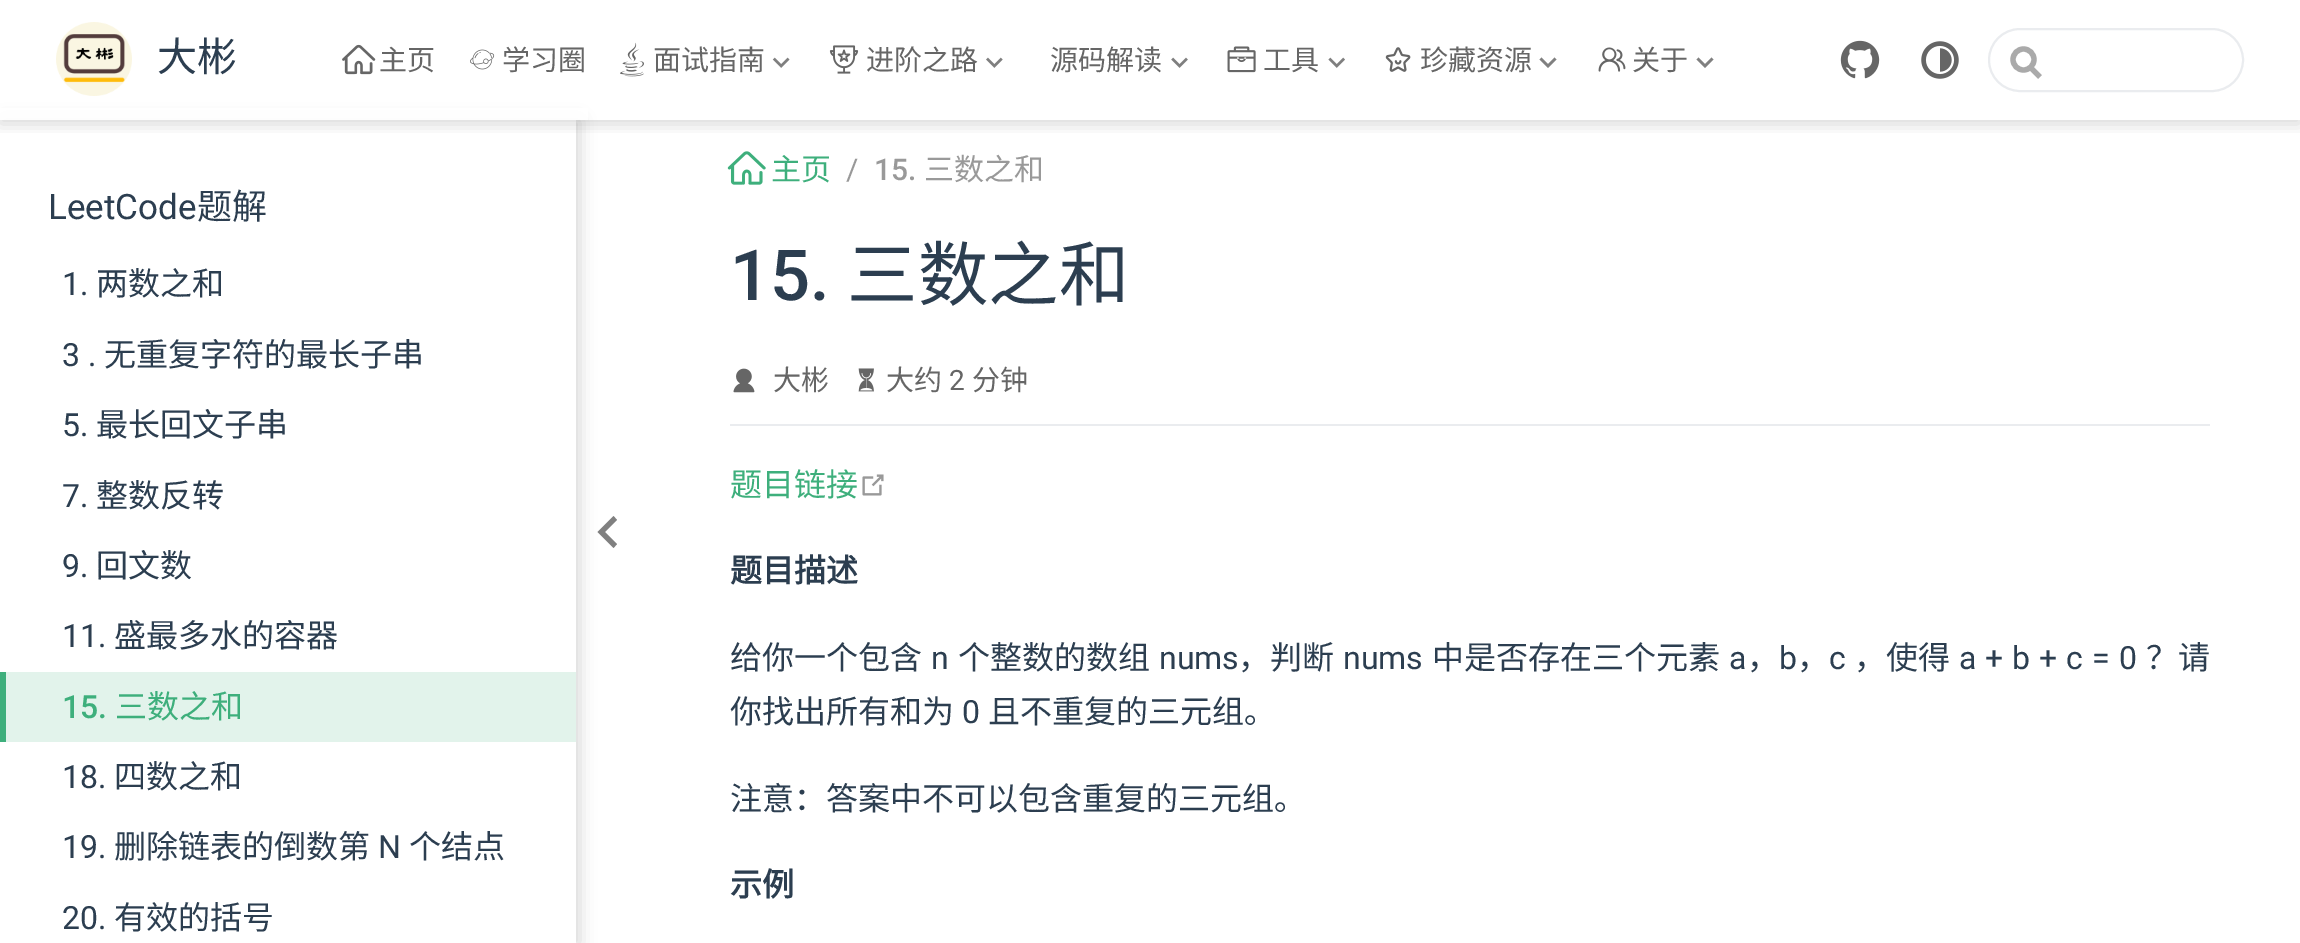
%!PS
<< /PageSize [2300 943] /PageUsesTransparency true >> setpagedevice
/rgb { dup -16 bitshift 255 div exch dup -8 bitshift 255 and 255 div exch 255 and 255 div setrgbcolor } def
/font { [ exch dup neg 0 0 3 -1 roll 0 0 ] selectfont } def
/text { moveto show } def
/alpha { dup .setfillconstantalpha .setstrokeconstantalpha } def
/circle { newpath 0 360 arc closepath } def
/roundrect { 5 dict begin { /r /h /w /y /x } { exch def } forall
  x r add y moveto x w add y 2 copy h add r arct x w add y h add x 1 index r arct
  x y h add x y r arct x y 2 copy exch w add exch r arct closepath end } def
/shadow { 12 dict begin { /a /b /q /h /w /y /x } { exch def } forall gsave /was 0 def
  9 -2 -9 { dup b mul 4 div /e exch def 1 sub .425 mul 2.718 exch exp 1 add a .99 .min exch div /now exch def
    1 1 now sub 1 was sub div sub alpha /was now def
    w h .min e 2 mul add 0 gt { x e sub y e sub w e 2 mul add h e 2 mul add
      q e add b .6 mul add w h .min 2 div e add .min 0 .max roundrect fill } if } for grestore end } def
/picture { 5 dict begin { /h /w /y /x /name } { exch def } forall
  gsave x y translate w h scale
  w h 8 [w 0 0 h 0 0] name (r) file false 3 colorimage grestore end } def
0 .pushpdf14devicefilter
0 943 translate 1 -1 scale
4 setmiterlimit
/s1 { /NotoSansCJKSC-Regular 40 font 16#2C3E50 rgb } def
/s2 { /NotoSansCJKSC-Regular 28 font 16#666666 rgb } def
/s3 { /Roboto-Regular 35 font 16#2C3E50 rgb } def
/s4 { /NotoSansCJKSC-Regular 35 font 16#2C3E50 rgb } def
/s5 { /Roboto-Regular 32 font 16#2C3E50 rgb } def
/s6 { /NotoSansCJKSC-Regular 32 font 16#2C3E50 rgb } def
/s7 { /Roboto-Medium 32 font 16#3EAF7C rgb } def
/s8 { /NotoSansCJKSC-Regular 32 font 16#3EAF7C rgb } def
/s9 { /NotoSansCJKSC-Regular 30 font 16#3EAF7C rgb } def
/s10 { /Roboto-Regular 30 font 16#999999 rgb } def
/s11 { /Roboto-Medium 30 font 16#999999 rgb } def
/s12 { /NotoSansCJKSC-Regular 30 font 16#999999 rgb } def
/s13 { /Roboto-Medium 70.5 font 16#2C3E50 rgb } def
/s14 { /NotoSansCJKSC-Regular 70.5 font 16#2C3E50 rgb } def
/s15 { /Roboto-Regular 28 font 16#666666 rgb } def
/s16 { /NotoSansCJKSC-Bold 32 font 16#2C3E50 rgb } def
16#FFFFFF rgb
0 0 2300 943 rectfill
gsave
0 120 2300 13 rectclip
16#000000 rgb
0 4 2300 120 0 8 0.15 shadow
grestore
16#808080 rgb
617 544 moveto 605 532 lineto 617 520 lineto 613.5 516 lineto 597.5 532 lineto 613.5 548 lineto closepath fill
gsave
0 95 moveto 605 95 lineto 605 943 lineto 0 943 lineto closepath 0 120 moveto 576 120 lineto 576 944 lineto 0 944 lineto closepath eoclip newpath
16#000000 rgb
4 120 576 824 0 8 0.15 shadow
grestore
0.9 alpha
16#FFFFFF rgb
0 108 588 12 rectfill
1 alpha
(pic1.raw) 56 22 76 74 picture
s1
(大彬) 157 71 text
(pic2.raw) 342 44 34 31 picture
s2
(主页) 379 70 text
(pic3.raw) 470 49 25 21 picture
(学习圈) 502 70 text
(pic4.raw) 620 42 24 35 picture
(面试指南) 653 70 text
(pic5.raw) 772 57 18 11 picture
(pic6.raw) 829 45 30 29 picture
(进阶之路) 866 70 text
(pic7.raw) 986 57 17 11 picture
(源码解读) 1050 70 text
(pic8.raw) 1171 57 17 11 picture
(pic9.raw) 1227 46 29 27 picture
(工具) 1263 70 text
(pic10.raw) 1328 57 17 11 picture
(pic11.raw) 1385 47 26 25 picture
(珍藏资源) 1420 70 text
16#808080 rgb
1554.5 57.5 moveto 1548 64 lineto 1541.5 57.5 lineto 1539.5 59.5 lineto 1548 68 lineto 1556.5 59.5 lineto closepath fill
(pic12.raw) 1598 47 28 25 picture
s2
(关于) 1632 70 text
16#808080 rgb
1711.5 57.5 moveto 1705 64 lineto 1698.5 57.5 lineto 1696.5 59.5 lineto 1705 68 lineto 1713.5 59.5 lineto closepath fill
(pic13.raw) 1840 40 40 39 picture
(pic14.raw) 1921 41 38 38 picture
16#AAAAAA rgb
5.3 setlinewidth
2040 77 moveto 2029.5 66.5 lineto stroke
2023.5 59.5 10.5 circle stroke
16#EAECEF rgb
2 setlinewidth
1989 29 254 62 31 roundrect stroke
s3
(LeetCode) 48 219 text
s4
(题解) 197 219 text
s5
(1.) 62 295 text
s6
(两数之和) 96 295 text
s5
(3 .) 62 366 text
s6
(无重复字符的最长子串) 104 366 text
s5
(5.) 62 436 text
s6
(最长回文子串) 96 436 text
s5
(7.) 62 507 text
s6
(整数反转) 96 507 text
s5
(9.) 62 577 text
s6
(回文数) 96 577 text
s5
(11.) 62 647 text
s6
(盛最多水的容器) 114 647 text
16#E2F3EB rgb
6 672 570 70 rectfill
16#3EAF7C rgb
0 672 6 70 rectfill
s7
(15.) 62 718 text
s8
(三数之和) 115 718 text
s5
(18.) 62 788 text
s6
(四数之和) 114 788 text
s5
(19.) 62 858 text
s6
(删除链表的倒数第) 114 858 text
s5
(N) 378 858 text
s6
(个结点) 409 858 text
s5
(20.) 62 929 text
s6
(有效的括号) 114 929 text
(pic15.raw) 727 151 39 34 picture
s9
(主页) 771 180 text
s10
(/) 846 180 text
s11
(15.) 874 180 text
s12
(三数之和) 924 180 text
s13
(15.) 730 300 text
s14
(三数之和) 847 300 text
(pic16.raw) 733 368 22 25 picture
s2
(大彬) 773 390 text
(pic17.raw) 858 368 16 24 picture
(大约) 886 390 text
s15
(2) 949 390 text
s2
(分钟) 972 390 text
16#EAECEF rgb
730 424 1480 2 rectfill
s8
(题目链接) 730 496 text
(pic18.raw) 862 474 22 22 picture
s16
(题目描述) 730 582 text
s6
(给你一个包含) 730 669 text
s5
(n) 931 669 text
s6
(个整数的数组) 958 669 text
s5
(nums) 1159 669 text
s6
(，判断) 1238 669 text
s5
(nums) 1343 669 text
s6
(中是否存在三个元素) 1432 669 text
s5
(a) 1729 669 text
s6
(，) 1747 669 text
s5
(b) 1779 669 text
s6
(，) 1797 669 text
s5
(c) 1829 669 text
s6
(，使得) 1854 669 text
/Roboto-Regular 32 font
1959 669 moveto 1 0 32 (a + b + c = 0) widthshow
s6
(？请) 2146 669 text
(你找出所有和为) 730 723 text
s5
(0) 962 723 text
s6
(且不重复的三元组。) 988 723 text
(注意：答案中不可以包含重复的三元组。) 730 810 text
s16
(示例) 730 896 text
.poppdf14devicefilter showpage
